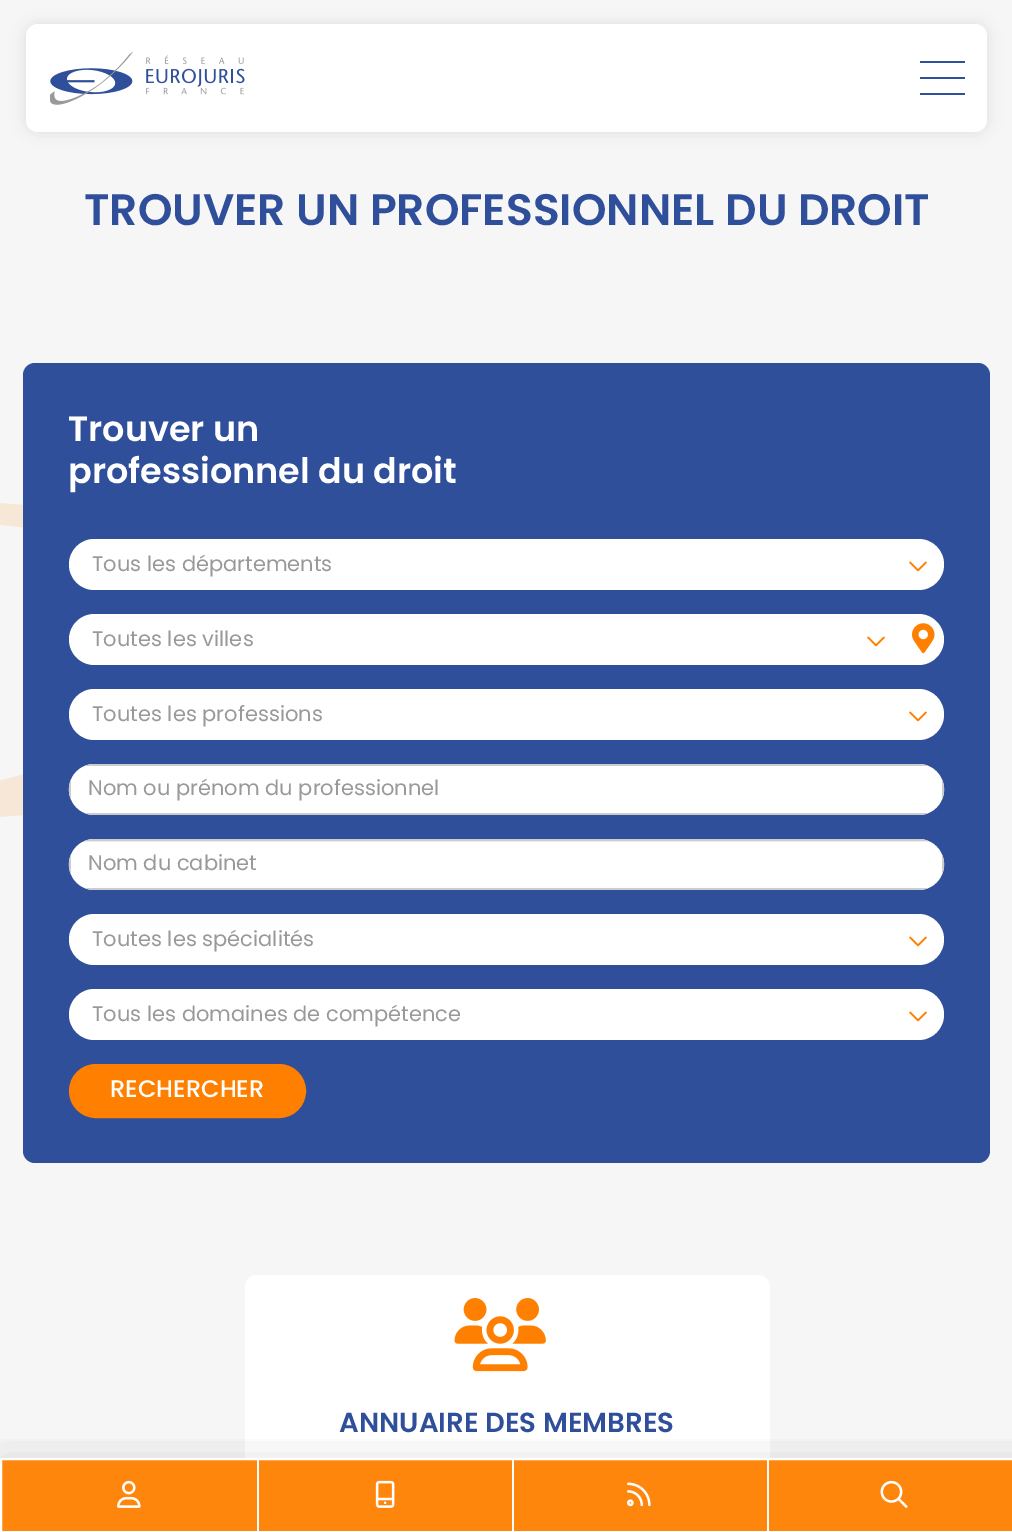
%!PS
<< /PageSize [1012 1532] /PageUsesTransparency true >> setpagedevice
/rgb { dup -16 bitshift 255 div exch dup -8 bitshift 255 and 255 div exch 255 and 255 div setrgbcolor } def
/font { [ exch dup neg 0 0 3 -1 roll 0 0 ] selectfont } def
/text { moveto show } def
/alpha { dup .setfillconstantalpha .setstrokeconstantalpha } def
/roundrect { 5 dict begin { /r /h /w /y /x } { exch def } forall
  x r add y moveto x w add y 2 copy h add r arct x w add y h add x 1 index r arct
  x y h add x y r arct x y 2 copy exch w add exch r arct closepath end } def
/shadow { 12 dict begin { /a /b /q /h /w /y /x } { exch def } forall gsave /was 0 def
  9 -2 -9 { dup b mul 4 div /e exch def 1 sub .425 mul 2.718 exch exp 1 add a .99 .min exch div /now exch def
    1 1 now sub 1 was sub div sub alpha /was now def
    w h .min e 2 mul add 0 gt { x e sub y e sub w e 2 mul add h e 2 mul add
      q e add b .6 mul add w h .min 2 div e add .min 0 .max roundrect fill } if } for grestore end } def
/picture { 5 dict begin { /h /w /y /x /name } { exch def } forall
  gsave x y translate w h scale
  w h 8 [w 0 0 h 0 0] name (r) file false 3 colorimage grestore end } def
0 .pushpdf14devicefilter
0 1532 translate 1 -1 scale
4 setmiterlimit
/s1 { /Poppins-SemiBold 44 font 16#2F4F9A rgb } def
/s2 { /Poppins-SemiBold 35 font 16#FFFFFF rgb } def
/s3 { /Poppins-Regular 21 font 16#999999 rgb } def
/s4 { /Poppins-Medium 24 font 16#FFFFFF rgb } def
/s5 { /Poppins-SemiBold 27.6 font 16#2F4F9A rgb } def
16#F6F6F6 rgb
0 0 1012 1532 rectfill
16#000000 rgb
26 24 961 108 12 7.5 0.1 shadow
16#FFFFFF rgb
26 24 961 108 12 roundrect fill
(pic1.raw) 50 51 195 54 picture
16#2F4F9A rgb
920 61 45 2 rectfill
920 77 45 2 rectfill
920 93 45 2 rectfill
s1
(TROUVER UN PROFESSIONNEL DU DROIT) 84 225 text
16#F7E7D6 rgb
-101 820 moveto -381 820 -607 748 -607 660 curveto -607 572 -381 500 -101 500 curveto 178 500 405 572 405 660 curveto 405 748 178 820 -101 820 curveto 193 630 moveto 185 556 46 509 -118 526 curveto -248 540 -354 589 -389 646 curveto -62 646 lineto -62 673 lineto -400 673 lineto -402 679 -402 686 -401 692 curveto -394 767 -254 814 -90 797 curveto 74 779 201 705 193 630 curveto fill
16#2F4F9A rgb
23 363 967 800 12 roundrect fill
s2
(Trouver un) 68 441 text
(professionnel du droit) 68 483 text
69 539 875 51 25.5 roundrect fill
s3
(Tous les départements) 92 571 text
(pic2.raw) 909 561 18 11 picture
16#FFFFFF rgb
94.5 614 moveto 902 614 lineto 902 665 lineto 94.5 665 lineto 80.5 665 69 653.5 69 639.5 curveto 69 625.5 80.5 614 94.5 614 curveto closepath fill
s3
(Toutes les villes) 92 646 text
(pic2.raw) 867 636 18 11 picture
16#FFFFFF rgb
902 614 moveto 918.5 614 lineto 932.5 614 944 625.5 944 639.5 curveto 944 653.5 932.5 665 918.5 665 curveto 902 665 lineto closepath fill
(pic3.raw) 912 623 23 31 picture
69 689 875 51 25.5 roundrect fill
s3
(Toutes les professions) 92 721 text
(pic2.raw) 909 711 18 11 picture
16#FFFFFF rgb
69 764 875 51 25.5 roundrect fill
0.07 alpha
16#000000 rgb
926 765 moveto 87 765 lineto 85 766 lineto 928 766 lineto closepath fill
1 alpha
16#CCCCCC rgb
94 815 moveto 918 815 lineto 922 815 925 814 928 813 curveto 85 813 lineto 88 814 91 815 94 815 curveto closepath 71 799 moveto 68 793 68 786 71 780 curveto closepath 94 764 moveto 91 764 88 765 85 766 curveto 928 766 lineto 925 765 922 764 918 764 curveto closepath 942 780 moveto 942 799 lineto 945 793 945 786 942 780 curveto closepath eofill
s3
(Nom ou prénom du professionnel) 88 795 text
16#FFFFFF rgb
69 839 875 51 25.5 roundrect fill
0.07 alpha
16#000000 rgb
926 840 moveto 87 840 lineto 82 842 lineto 931 842 lineto closepath fill
1 alpha
16#CCCCCC rgb
94 890 moveto 918 890 lineto 922 890 925 889 928 888 curveto 85 888 lineto 88 889 91 890 94 890 curveto closepath 71 874 moveto 68 868 68 861 71 855 curveto closepath 94 839 moveto 91 839 88 840 85 841 curveto 928 841 lineto 925 840 922 839 918 839 curveto closepath 942 855 moveto 942 874 lineto 945 868 945 861 942 855 curveto closepath eofill
s3
(Nom du cabinet) 88 870 text
16#FFFFFF rgb
69 914 875 51 25.5 roundrect fill
s3
(Toutes les spécialités) 92 946 text
(pic2.raw) 909 936 18 11 picture
16#FFFFFF rgb
69 989 875 51 25.5 roundrect fill
s3
(Tous les domaines de compétence) 92 1021 text
(pic2.raw) 909 1011 18 11 picture
16#FF8000 rgb
70.5 1065.5 234 51 25.5 roundrect gsave fill grestore
3 setlinewidth
stroke
s4
(RECHERCHER) 110 1097 text
245 1275 525 194 12 roundrect fill
(pic4.raw) 454 1298 92 74 picture
s5
(ANNUAIRE DES MEMBRES) 339 1432 text
gsave
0 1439 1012 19 rectclip
16#000000 rgb
0 1458 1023 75 0 22.5 0.1 shadow
grestore
0.95 alpha
16#FF8000 rgb
1 1459 moveto 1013 1459 lineto 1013 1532 lineto 1 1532 lineto closepath fill
1 alpha
16#FFFFFF rgb
2 setlinewidth
1 1459 moveto 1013 1459 lineto 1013 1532 lineto 1 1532 lineto closepath stroke
(pic5.raw) 117 1480 24 28 picture
257 1460 2 72 rectfill
(pic6.raw) 375 1480 20 28 picture
512 1460 2 72 rectfill
(pic7.raw) 627 1482 24 25 picture
767 1460 2 72 rectfill
(pic8.raw) 880 1480 28 28 picture
.poppdf14devicefilter showpage
